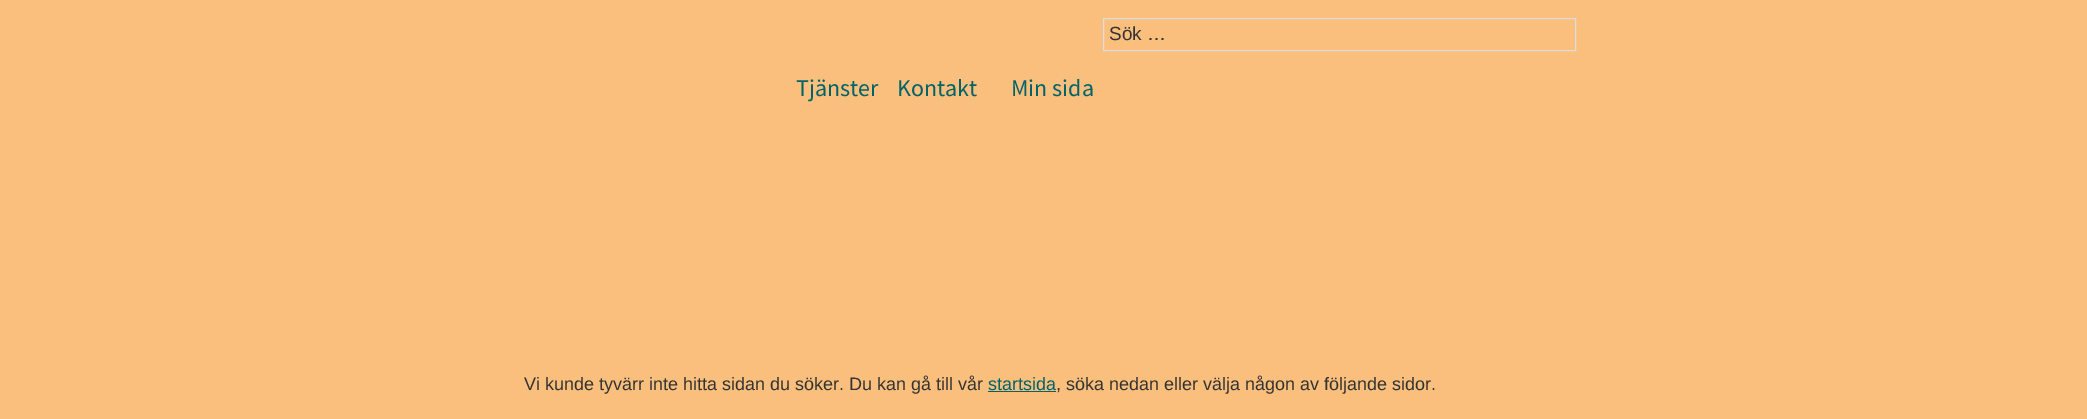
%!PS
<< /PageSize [2087 419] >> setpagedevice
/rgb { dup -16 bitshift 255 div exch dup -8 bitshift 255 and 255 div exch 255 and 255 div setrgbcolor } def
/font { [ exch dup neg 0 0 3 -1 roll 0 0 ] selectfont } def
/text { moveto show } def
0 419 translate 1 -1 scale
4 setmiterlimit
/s1 { /LiberationSans-Regular 19 font 16#333333 rgb } def
/s2 { /SourceSansPro-Regular 24 font 16#006369 rgb } def
/s3 { /LiberationSans-Regular 18 font 16#333333 rgb } def
/s4 { /LiberationSans-Regular 18 font 16#006369 rgb } def
16#FABF7C rgb
0 0 2087 419 rectfill
16#DDDDDD rgb
1103.5 18.5 472 32 rectstroke
s1
(Sök …) 1109 40 text
s2
(Tjänster) 796 96 text
(Kontakt) 897 96 text
(Min sida) 1011 96 text
s3
(Vi kunde tyvärr inte hitta sidan du söker. Du kan gå till vår) 524 390 text
s4
(startsida) 988 390 text
988 391 68 1 rectfill
s3
(, söka nedan eller välja någon av följande sidor.) 1056 390 text
showpage
